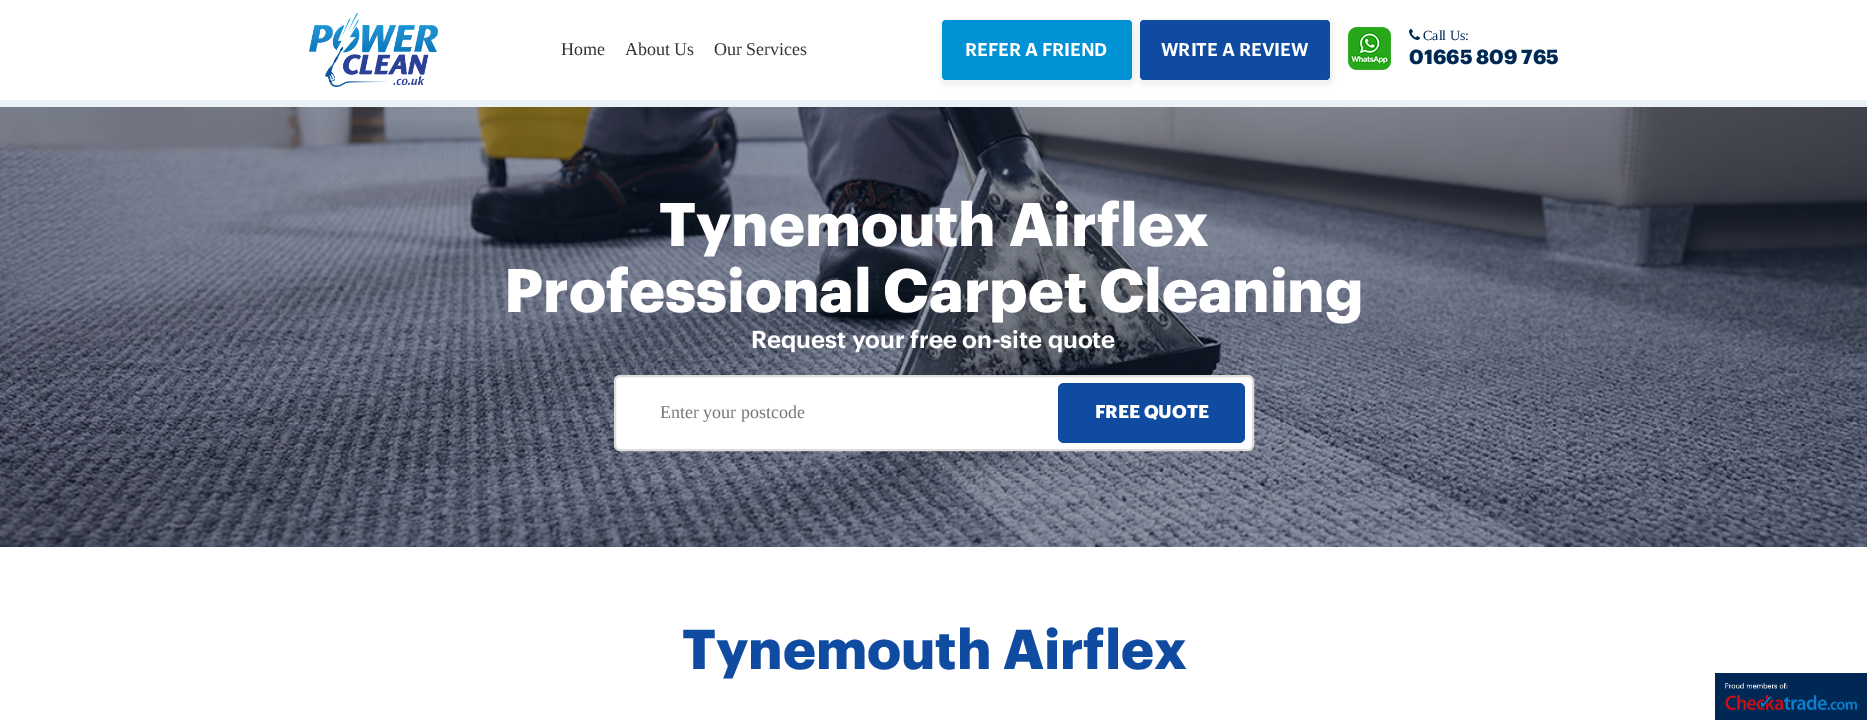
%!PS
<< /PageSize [1867 720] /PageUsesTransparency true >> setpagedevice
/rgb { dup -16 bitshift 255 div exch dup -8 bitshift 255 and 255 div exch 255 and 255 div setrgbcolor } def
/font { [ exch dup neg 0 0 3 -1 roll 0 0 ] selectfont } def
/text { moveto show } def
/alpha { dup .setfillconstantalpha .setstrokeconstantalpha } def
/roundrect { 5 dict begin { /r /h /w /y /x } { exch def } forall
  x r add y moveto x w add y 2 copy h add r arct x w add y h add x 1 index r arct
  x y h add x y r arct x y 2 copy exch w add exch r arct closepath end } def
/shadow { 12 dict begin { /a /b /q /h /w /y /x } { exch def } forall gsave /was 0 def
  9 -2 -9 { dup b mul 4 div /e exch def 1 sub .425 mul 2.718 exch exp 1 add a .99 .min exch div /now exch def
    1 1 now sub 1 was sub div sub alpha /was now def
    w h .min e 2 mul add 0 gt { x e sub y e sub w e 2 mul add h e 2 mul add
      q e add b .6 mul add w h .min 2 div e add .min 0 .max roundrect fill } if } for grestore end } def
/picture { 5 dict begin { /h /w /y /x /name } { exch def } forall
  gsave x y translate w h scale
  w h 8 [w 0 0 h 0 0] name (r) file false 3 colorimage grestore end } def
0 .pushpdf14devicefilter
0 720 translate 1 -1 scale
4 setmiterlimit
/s1 { /LiberationSerif-Regular 18 font 16#333333 rgb } def
/s2 { /Graphik-SemiBold 18 font 16#FFFFFF rgb } def
/s3 { /LiberationSerif-Regular 14 font 16#002854 rgb } def
/s4 { /Graphik-Bold 20 font 16#002854 rgb } def
/s5 { /Graphik-Bold 60 font 16#FFFFFF rgb } def
/s6 { /Graphik-SemiBold 24 font 16#FFFFFF rgb } def
/s7 { /LiberationSerif-Regular 18 font 16#757575 rgb } def
/s8 { /Graphik-Bold 18 font 16#FFFFFF rgb } def
16#FFFFFF rgb
0 0 1867 720 rectfill
(pic1.raw) 309 13 129 74 picture
s1
(Home) 561 55 text
(About Us) 625 55 text
(Our Services) 714 55 text
16#F1F1F1 rgb
940 20 196 66 7 2.5 1 shadow
16#0092D4 rgb
942 20 190 60 4 roundrect fill
s2
(REFER A FRIEND) 965 56 text
16#F1F1F1 rgb
1138 20 196 66 7 2.5 1 shadow
16#0E4BA1 rgb
1140 20 190 60 4 roundrect fill
s2
(WRITE A REVIEW) 1161 56 text
(pic2.raw) 1348 27 43 43 picture
(pic3.raw) 1409 29 11 11 picture
s3
(Call Us:) 1423 40 text
s4
(01665 809 765) 1409 64 text
16#EAF2F6 rgb
0 100 1867 7 rectfill
(pic4.raw) 0 107 1867 440 picture
/Graphik-Bold 60 font
16#FFFFFF rgb
659 246 moveto 1 0 32 (Tynemouth Airflex) widthshow
(Professional Carpet Cleaning) 504 312 text
s6
(Request your free on-site quote) 751 348 text
615 376 638 74 5 roundrect gsave fill grestore
16#DDDDDD rgb
2 setlinewidth
stroke
s7
(Enter your postcode) 660 418 text
16#0E4BA1 rgb
1058 383 187 60 6 roundrect fill
s8
(FREE QUOTE) 1095 418 text
/Graphik-Bold 55 font
16#0E4BA1 rgb
682 669 moveto 1 0 32 (Tynemouth Airflex) widthshow
16#002854 rgb
1715 673 152 47 rectfill
(pic5.raw) 1725 683 132 27 picture
.poppdf14devicefilter showpage
